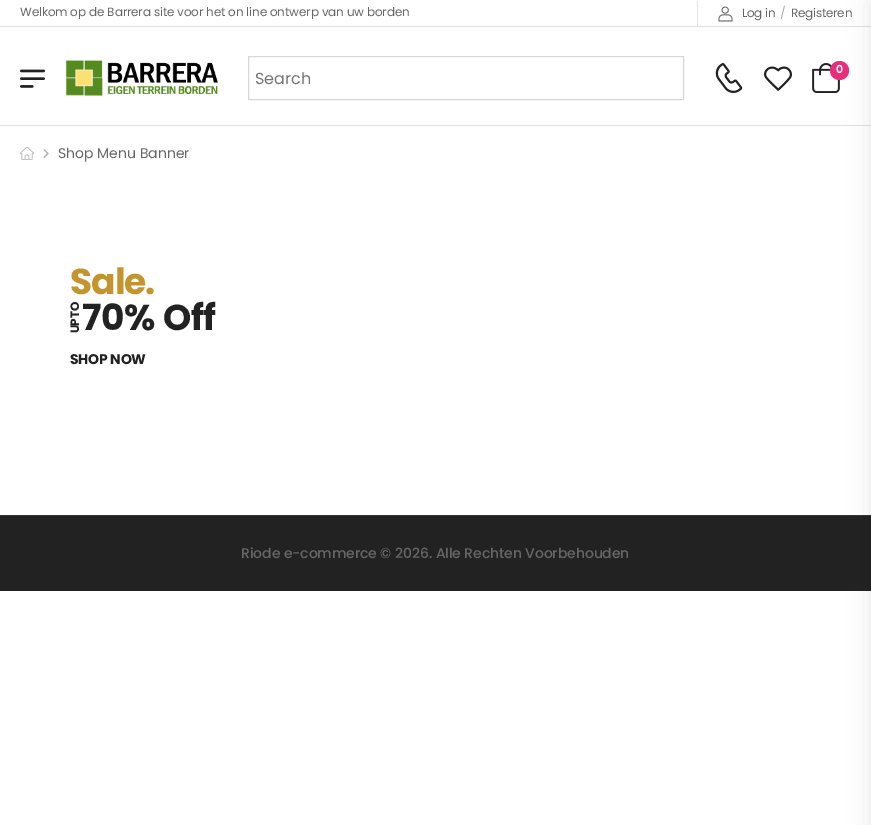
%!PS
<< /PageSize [871 825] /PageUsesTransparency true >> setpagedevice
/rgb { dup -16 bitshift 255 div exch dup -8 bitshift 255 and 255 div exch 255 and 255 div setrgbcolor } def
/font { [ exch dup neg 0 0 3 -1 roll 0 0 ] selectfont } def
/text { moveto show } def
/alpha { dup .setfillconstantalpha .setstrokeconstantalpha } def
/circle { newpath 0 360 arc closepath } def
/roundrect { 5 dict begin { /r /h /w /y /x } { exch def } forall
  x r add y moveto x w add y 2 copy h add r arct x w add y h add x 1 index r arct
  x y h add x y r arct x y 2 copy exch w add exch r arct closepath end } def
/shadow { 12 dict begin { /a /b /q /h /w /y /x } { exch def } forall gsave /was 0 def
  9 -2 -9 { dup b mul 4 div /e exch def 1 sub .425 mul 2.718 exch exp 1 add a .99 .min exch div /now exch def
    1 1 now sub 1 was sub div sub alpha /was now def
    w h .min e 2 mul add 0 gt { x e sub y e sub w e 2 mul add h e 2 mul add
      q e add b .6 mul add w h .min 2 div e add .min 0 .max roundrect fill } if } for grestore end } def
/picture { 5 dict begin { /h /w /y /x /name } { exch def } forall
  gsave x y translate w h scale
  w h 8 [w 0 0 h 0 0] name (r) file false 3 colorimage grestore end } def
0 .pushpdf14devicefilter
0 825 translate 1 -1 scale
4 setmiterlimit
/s1 { /Poppins-Regular 16 font 16#757575 rgb } def
/s2 { /Poppins-Regular 14 font 16#666666 rgb } def
16#FFFFFF rgb
0 0 871 825 rectfill
16#E2E2E2 rgb
0 125 871 1 rectfill
16#E1E1E1 rgb
0 26 871 1 rectfill
/Poppins-Regular 12 font
16#666666 rgb
20 16 moveto -0.15 0 (Welkom op de Barrera site voor het on line ontwerp van uw borden) ashow
16#E1E1E1 rgb
697 1 1 25 rectfill
(pic1.raw) 718 6 15 16 picture
16#666666 rgb
742 17 moveto -0.25 0 (Log in) ashow
16#AAAAAA rgb
780 17 moveto -0.25 0 (/) ashow
16#666666 rgb
791 17 moveto -0.25 0 (Registeren) ashow
(pic2.raw) 20 69 25 19 picture
(pic3.raw) 65 60 153 36 picture
16#D8D8D8 rgb
248.5 56.5 435 43 rectstroke
s1
(Search) 255 84 text
(pic4.raw) 715 63 28 30 picture
(pic5.raw) 764 66 28 25 picture
(pic6.raw) 812 63 28 30 picture
16#E82D7C rgb
839.5 70.5 9.5 circle fill
16#222222 rgb
0 516 871 75 rectfill
16#333333 rgb
0 515 871 1 rectfill
16#000000 rgb
871 2 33 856 0 11 0.1 shadow
/Poppins-SemiBold 11 font
16#FFFFFF rgb
836 73 moveto -0.25 0 (0) ashow
(pic7.raw) 20 146 14 14 picture
(pic8.raw) 43 149 6 9 picture
s2
(Shop Menu Banner) 58 158 text
/Poppins-Bold 36 font
16#C4942F rgb
70 294 moveto -1 0 (Sale.) ashow
/Poppins-Bold 12 font
16#222222 rgb
gsave 79 333 translate -90 rotate 0 0 moveto -1 0 (UP TO) ashow grestore
/Poppins-Bold 36 font
82 330 moveto -0.25 0 (70% Off) ashow
/Poppins-Bold 14 font
70 364 moveto -0.25 0 (SHOP NOW) ashow
/Poppins-Medium 14 font
16#666666 rgb
241 558 moveto -0.1 0 (Riode e-commerce © 2026. Alle Rechten Voorbehouden) ashow
.poppdf14devicefilter showpage
